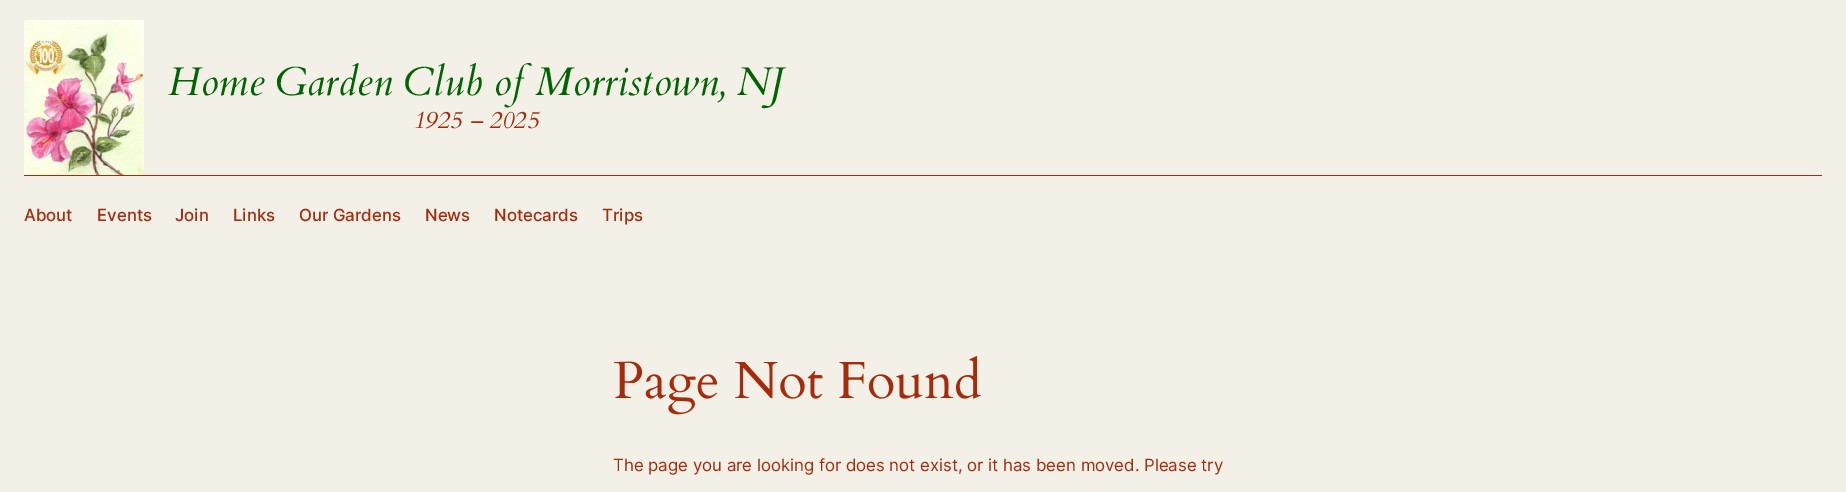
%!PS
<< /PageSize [1846 492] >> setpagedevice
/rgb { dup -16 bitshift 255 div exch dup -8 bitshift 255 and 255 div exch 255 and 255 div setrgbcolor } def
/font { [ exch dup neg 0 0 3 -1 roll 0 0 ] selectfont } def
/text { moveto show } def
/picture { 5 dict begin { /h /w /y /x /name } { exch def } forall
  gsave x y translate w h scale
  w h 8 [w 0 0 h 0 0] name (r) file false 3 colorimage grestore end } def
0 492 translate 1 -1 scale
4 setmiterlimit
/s1 { /Cardo-Italic 40 font 16#006400 rgb } def
/s2 { /Cardo-Italic 24 font 16#A62B0C rgb } def
/s3 { /Inter-Medium 16.8 font 16#A62B0C rgb } def
/s4 { /Inter-Regular 16.8 font 16#A62B0C rgb } def
16#F3F0E7 rgb
0 0 1846 492 rectfill
(pic1.raw) 24 20 120 155 picture
s1
(Home Garden Club of Morristown, NJ) 168 95 text
s2
(1925 – 2025) 413 128 text
24 175 1798 1 rectfill
s3
(About) 24 221 text
(Events) 97 221 text
(Join) 175 221 text
(Links) 233 221 text
(Our Gardens) 299 221 text
(News) 425 221 text
(Notecards) 494 221 text
(Trips) 602 221 text
(pic2.raw) 614 356 367 59 picture
s4
(The page you are looking for does not exist, or it has been moved. Please try) 613 471 text
showpage
